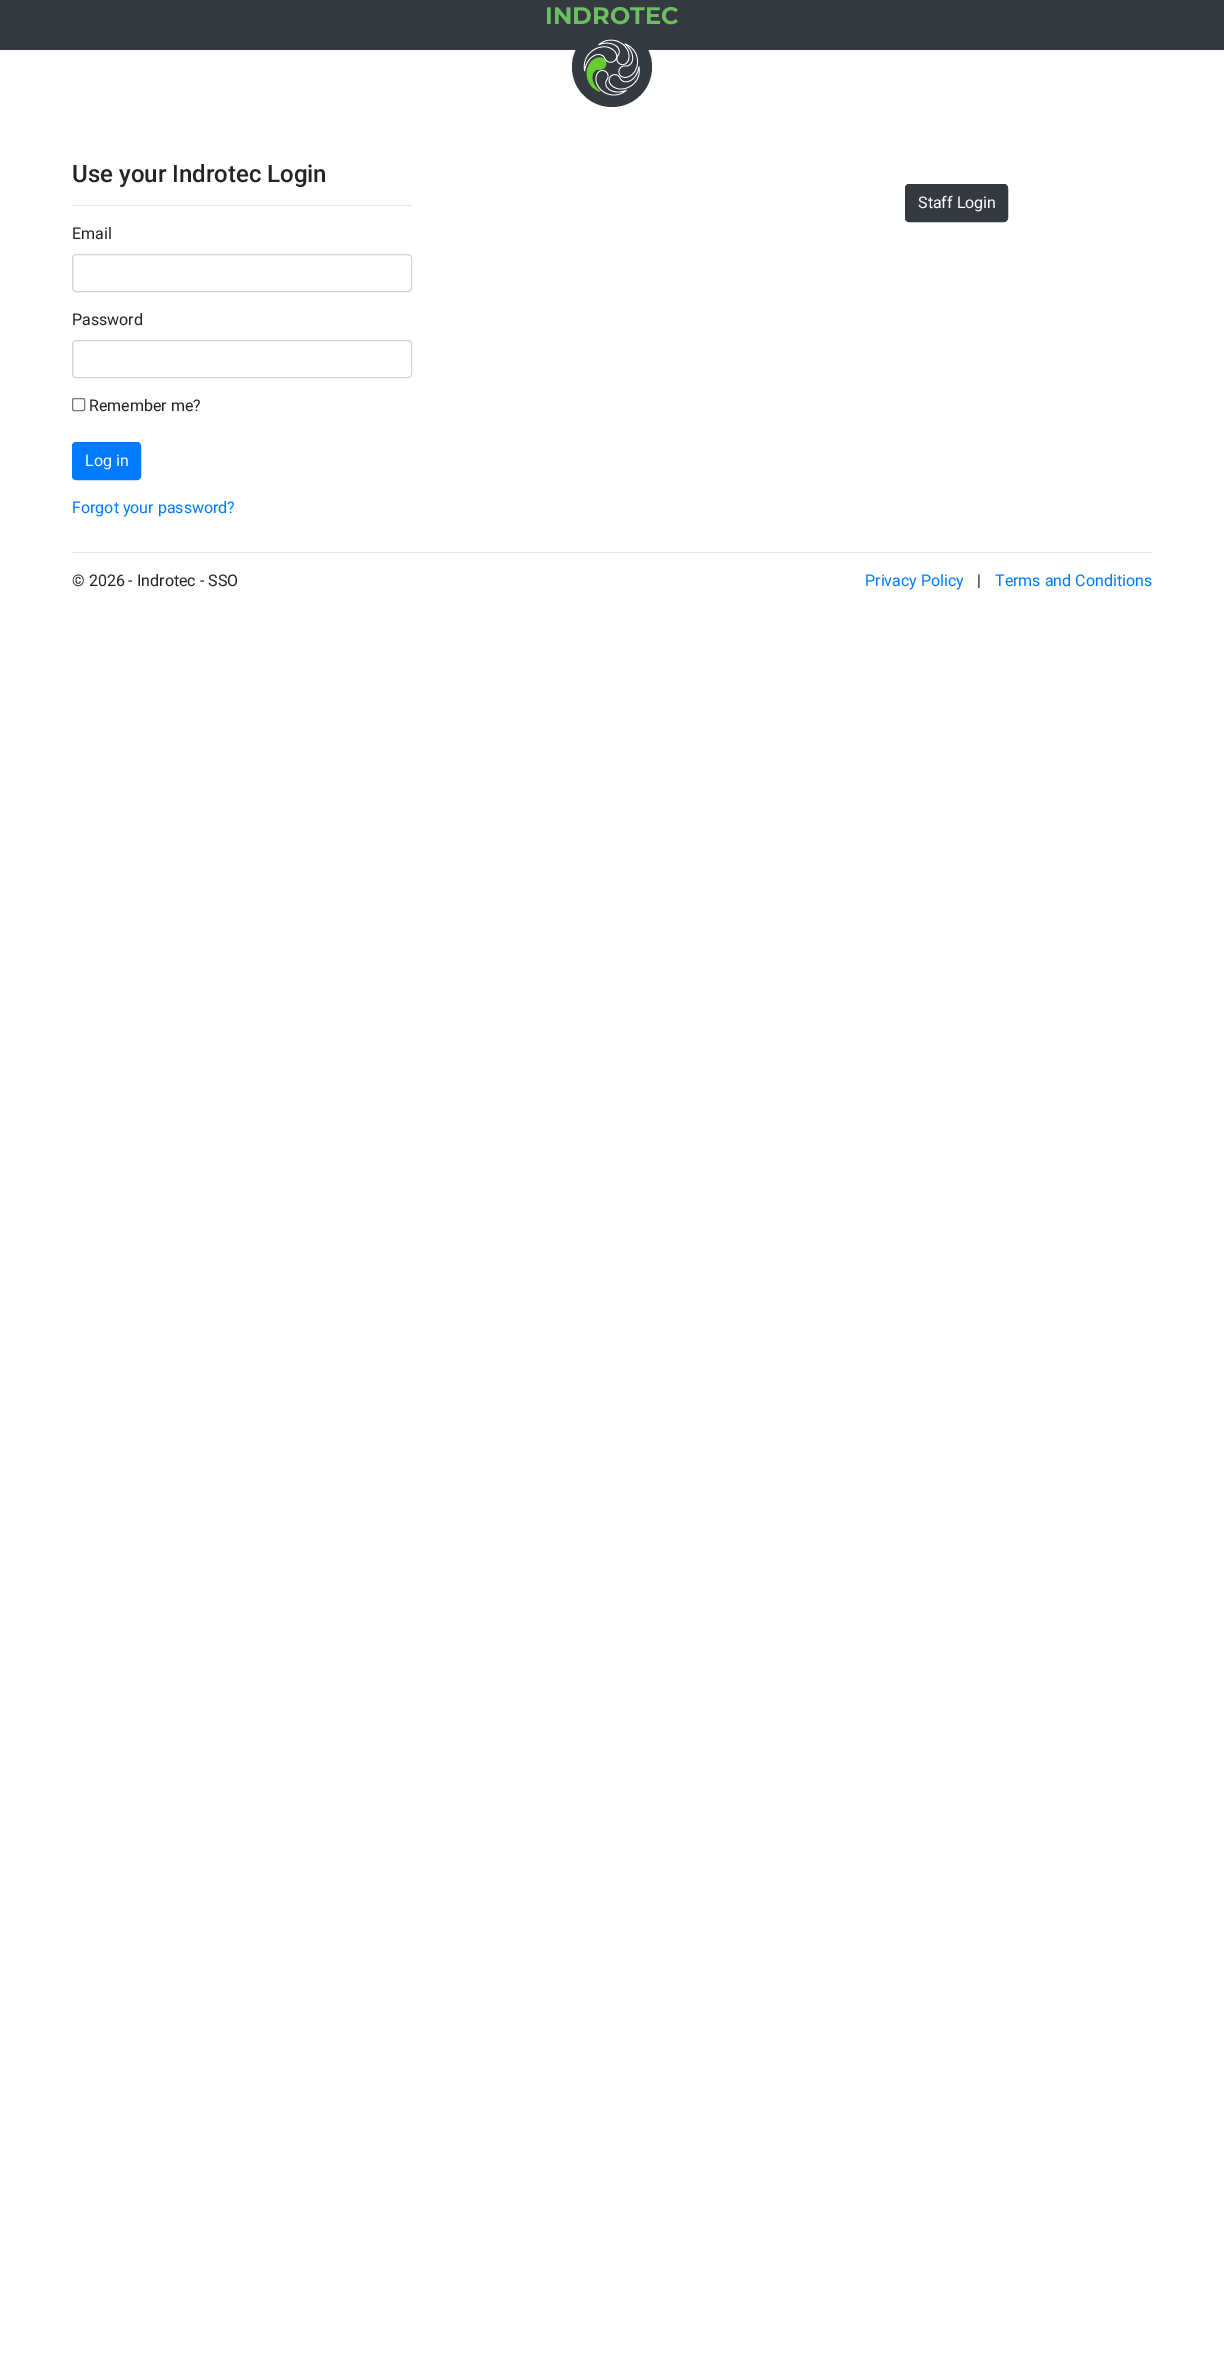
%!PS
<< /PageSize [1224 2377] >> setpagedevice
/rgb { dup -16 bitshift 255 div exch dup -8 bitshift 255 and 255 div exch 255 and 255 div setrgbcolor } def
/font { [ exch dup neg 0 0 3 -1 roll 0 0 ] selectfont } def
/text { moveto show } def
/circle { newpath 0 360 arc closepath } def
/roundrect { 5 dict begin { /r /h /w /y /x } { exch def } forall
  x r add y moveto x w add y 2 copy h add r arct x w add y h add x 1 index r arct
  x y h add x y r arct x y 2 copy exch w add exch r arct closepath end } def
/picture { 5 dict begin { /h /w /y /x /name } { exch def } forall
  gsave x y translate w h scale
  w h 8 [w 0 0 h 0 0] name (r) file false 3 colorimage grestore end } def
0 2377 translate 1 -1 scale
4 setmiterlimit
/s1 { /Montserrat-Bold 24 font 16#6DBD63 rgb } def
/s2 { /Roboto-Medium 24 font 16#212529 rgb } def
/s3 { /Roboto-Regular 16 font 16#212529 rgb } def
/s4 { /Roboto-Regular 16 font 16#FFFFFF rgb } def
/s5 { /Roboto-Regular 16 font 16#007BFF rgb } def
16#FFFFFF rgb
0 0 1224 2377 rectfill
16#343A40 rgb
0 0 1224 50 rectfill
s1
(INDROTEC) 545 24 text
16#343A40 rgb
612 67 40 circle fill
(pic1.raw) 583 39 57 57 picture
s2
(Use your Indrotec Login) 72 182 text
16#E6E6E6 rgb
72 205 340 1 rectfill
s3
(Email) 72 239 text
16#CED4DA rgb
72.5 254.5 339 37 3.5 roundrect stroke
s3
(Password) 72 325 text
16#CED4DA rgb
72.5 340.5 339 37 3.5 roundrect stroke
16#767676 rgb
72.5 398.5 12 12 1.5 roundrect stroke
s3
(Remember me?) 89 411 text
16#007BFF rgb
72.5 442.5 68 37 3.5 roundrect gsave fill grestore
stroke
s4
(Log in) 85 466 text
s5
(Forgot your password?) 72 513 text
16#343A40 rgb
905.5 184.5 102 37 3.5 roundrect gsave fill grestore
stroke
s4
(Staff Login) 918 208 text
16#E6E6E6 rgb
72 552 1080 1 rectfill
s3
(© 2026 - Indrotec - SSO) 72 586 text
s5
(Privacy Policy) 865 586 text
s3
(|) 977 586 text
s5
(Terms and Conditions) 995 586 text
showpage
